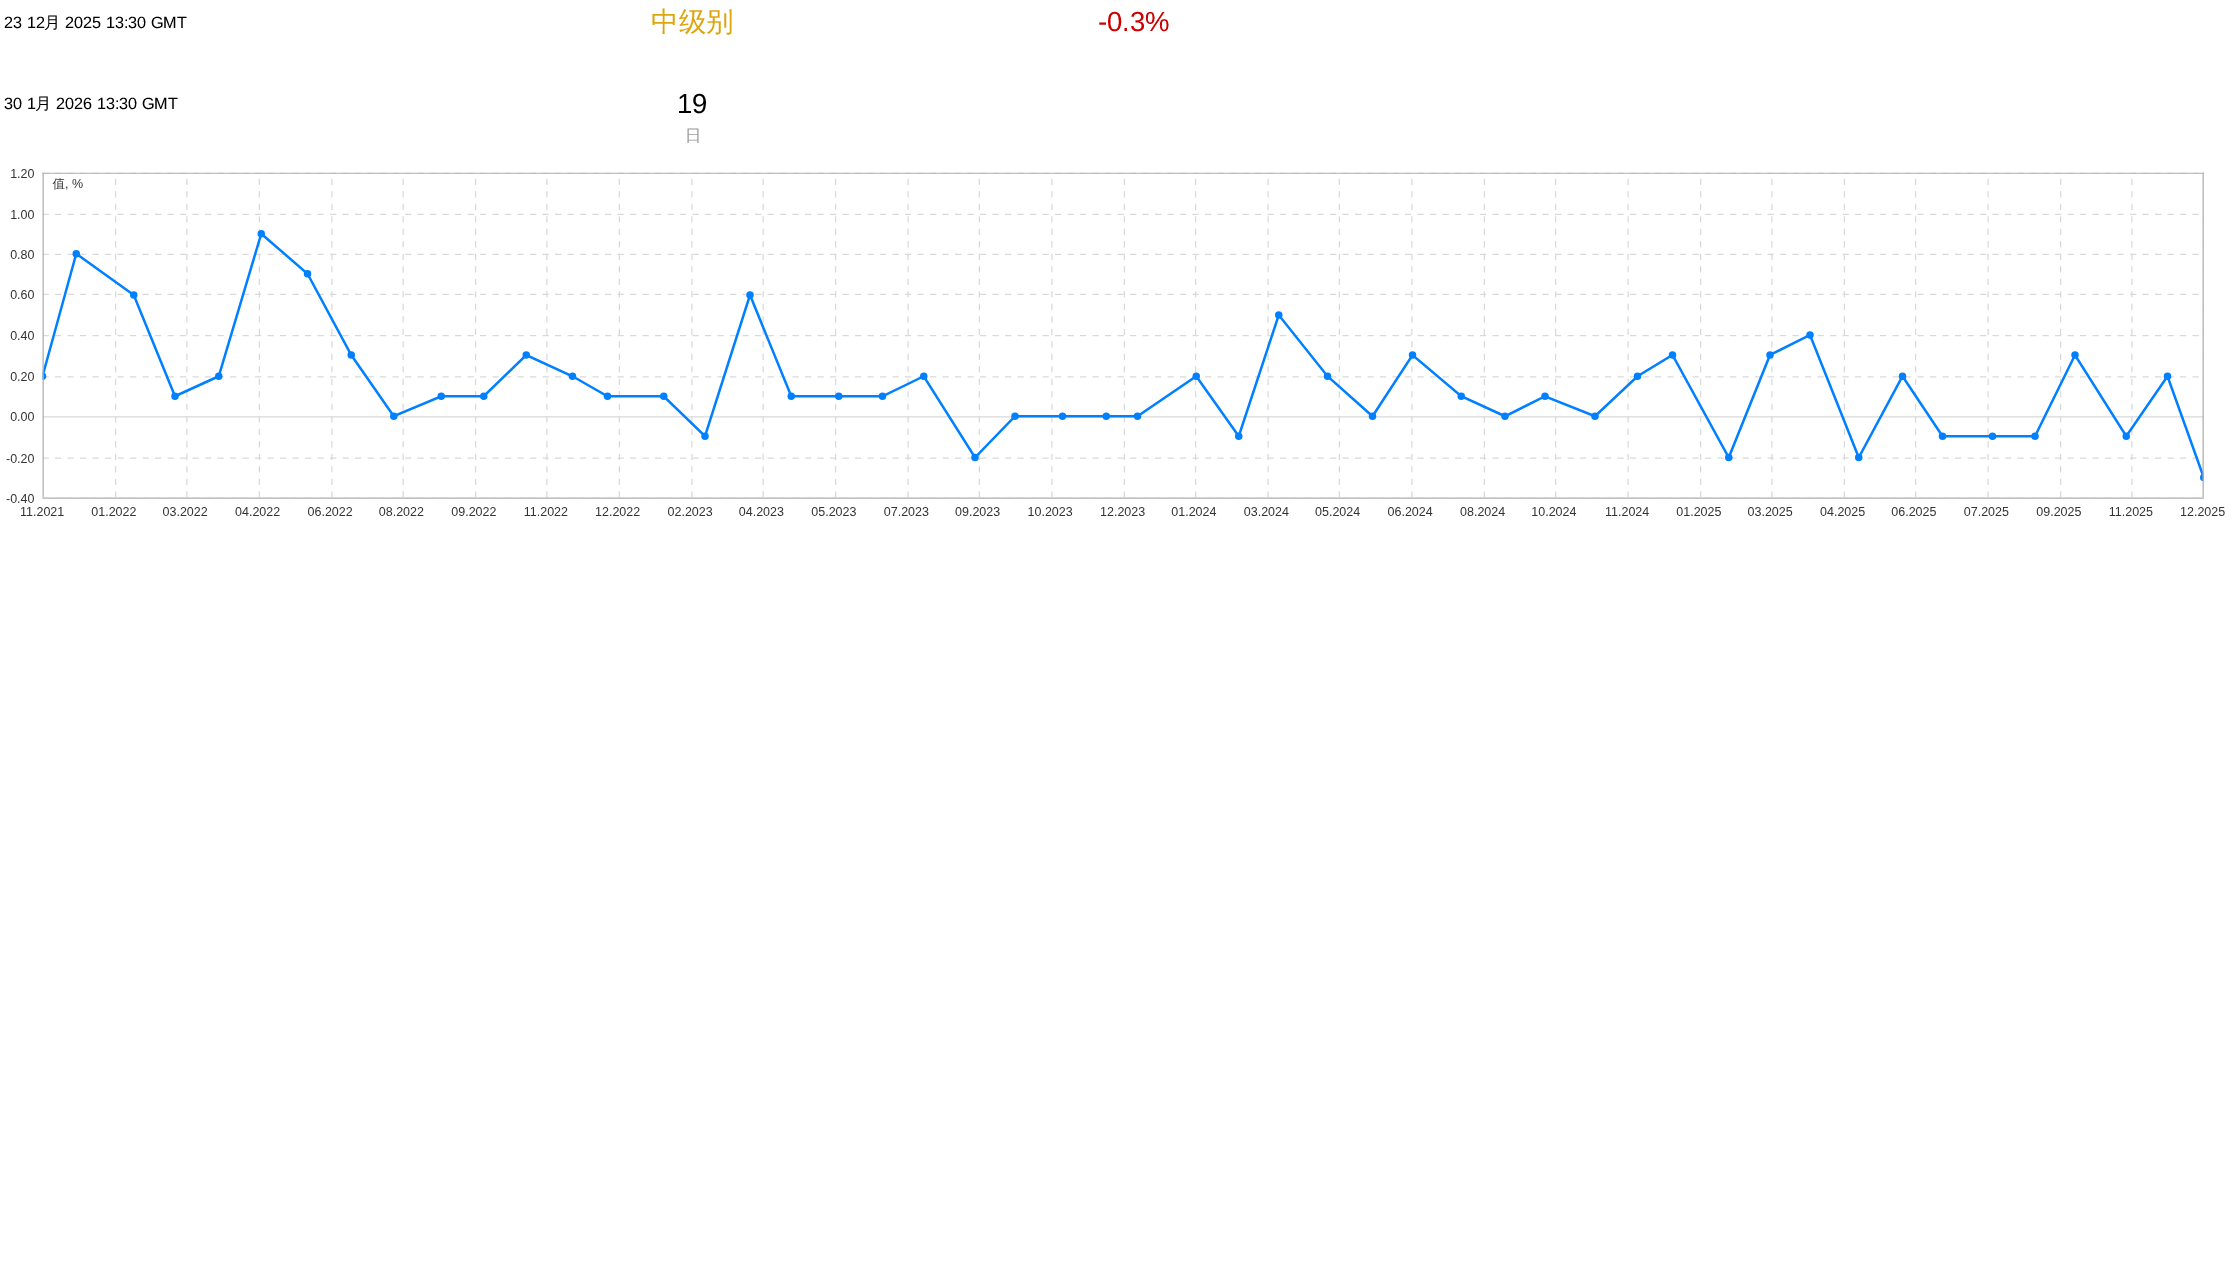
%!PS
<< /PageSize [2240 1265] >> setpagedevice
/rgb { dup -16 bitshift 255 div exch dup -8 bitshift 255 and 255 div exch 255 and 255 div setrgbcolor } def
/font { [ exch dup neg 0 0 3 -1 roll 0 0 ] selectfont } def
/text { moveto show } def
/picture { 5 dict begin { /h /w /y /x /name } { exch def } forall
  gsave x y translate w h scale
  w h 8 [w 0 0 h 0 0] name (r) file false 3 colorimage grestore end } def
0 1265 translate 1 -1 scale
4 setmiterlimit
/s1 { /LiberationSans-Regular 16.25 font 16#000000 rgb } def
/s2 { /WenQuanYiZenHei-Medium 16.25 font 16#000000 rgb } def
/s3 { /WenQuanYiZenHei-Medium 27.5 font 16#DDA509 rgb } def
/s4 { /LiberationSans-Regular 27.5 font 16#CC0000 rgb } def
/s5 { /LiberationSans-Regular 27.5 font 16#000000 rgb } def
/s6 { /WenQuanYiZenHei-Medium 16.25 font 16#999999 rgb } def
16#FFFFFF rgb
0 0 2240 1265 rectfill
s1
(23 12) 4 28 text
s2
(月) 44 28 text
s1
(2025 13:30 GMT) 65 28 text
s3
(中级别) 651 31 text
s4
(-0.3%) 1098 31 text
s1
(30 1) 4 109 text
s2
(月) 35 109 text
s1
(2026 13:30 GMT) 56 109 text
s5
(19) 677 113 text
s6
(日) 685 141 text
(pic1.raw) 6 169 2219 347 picture
showpage
